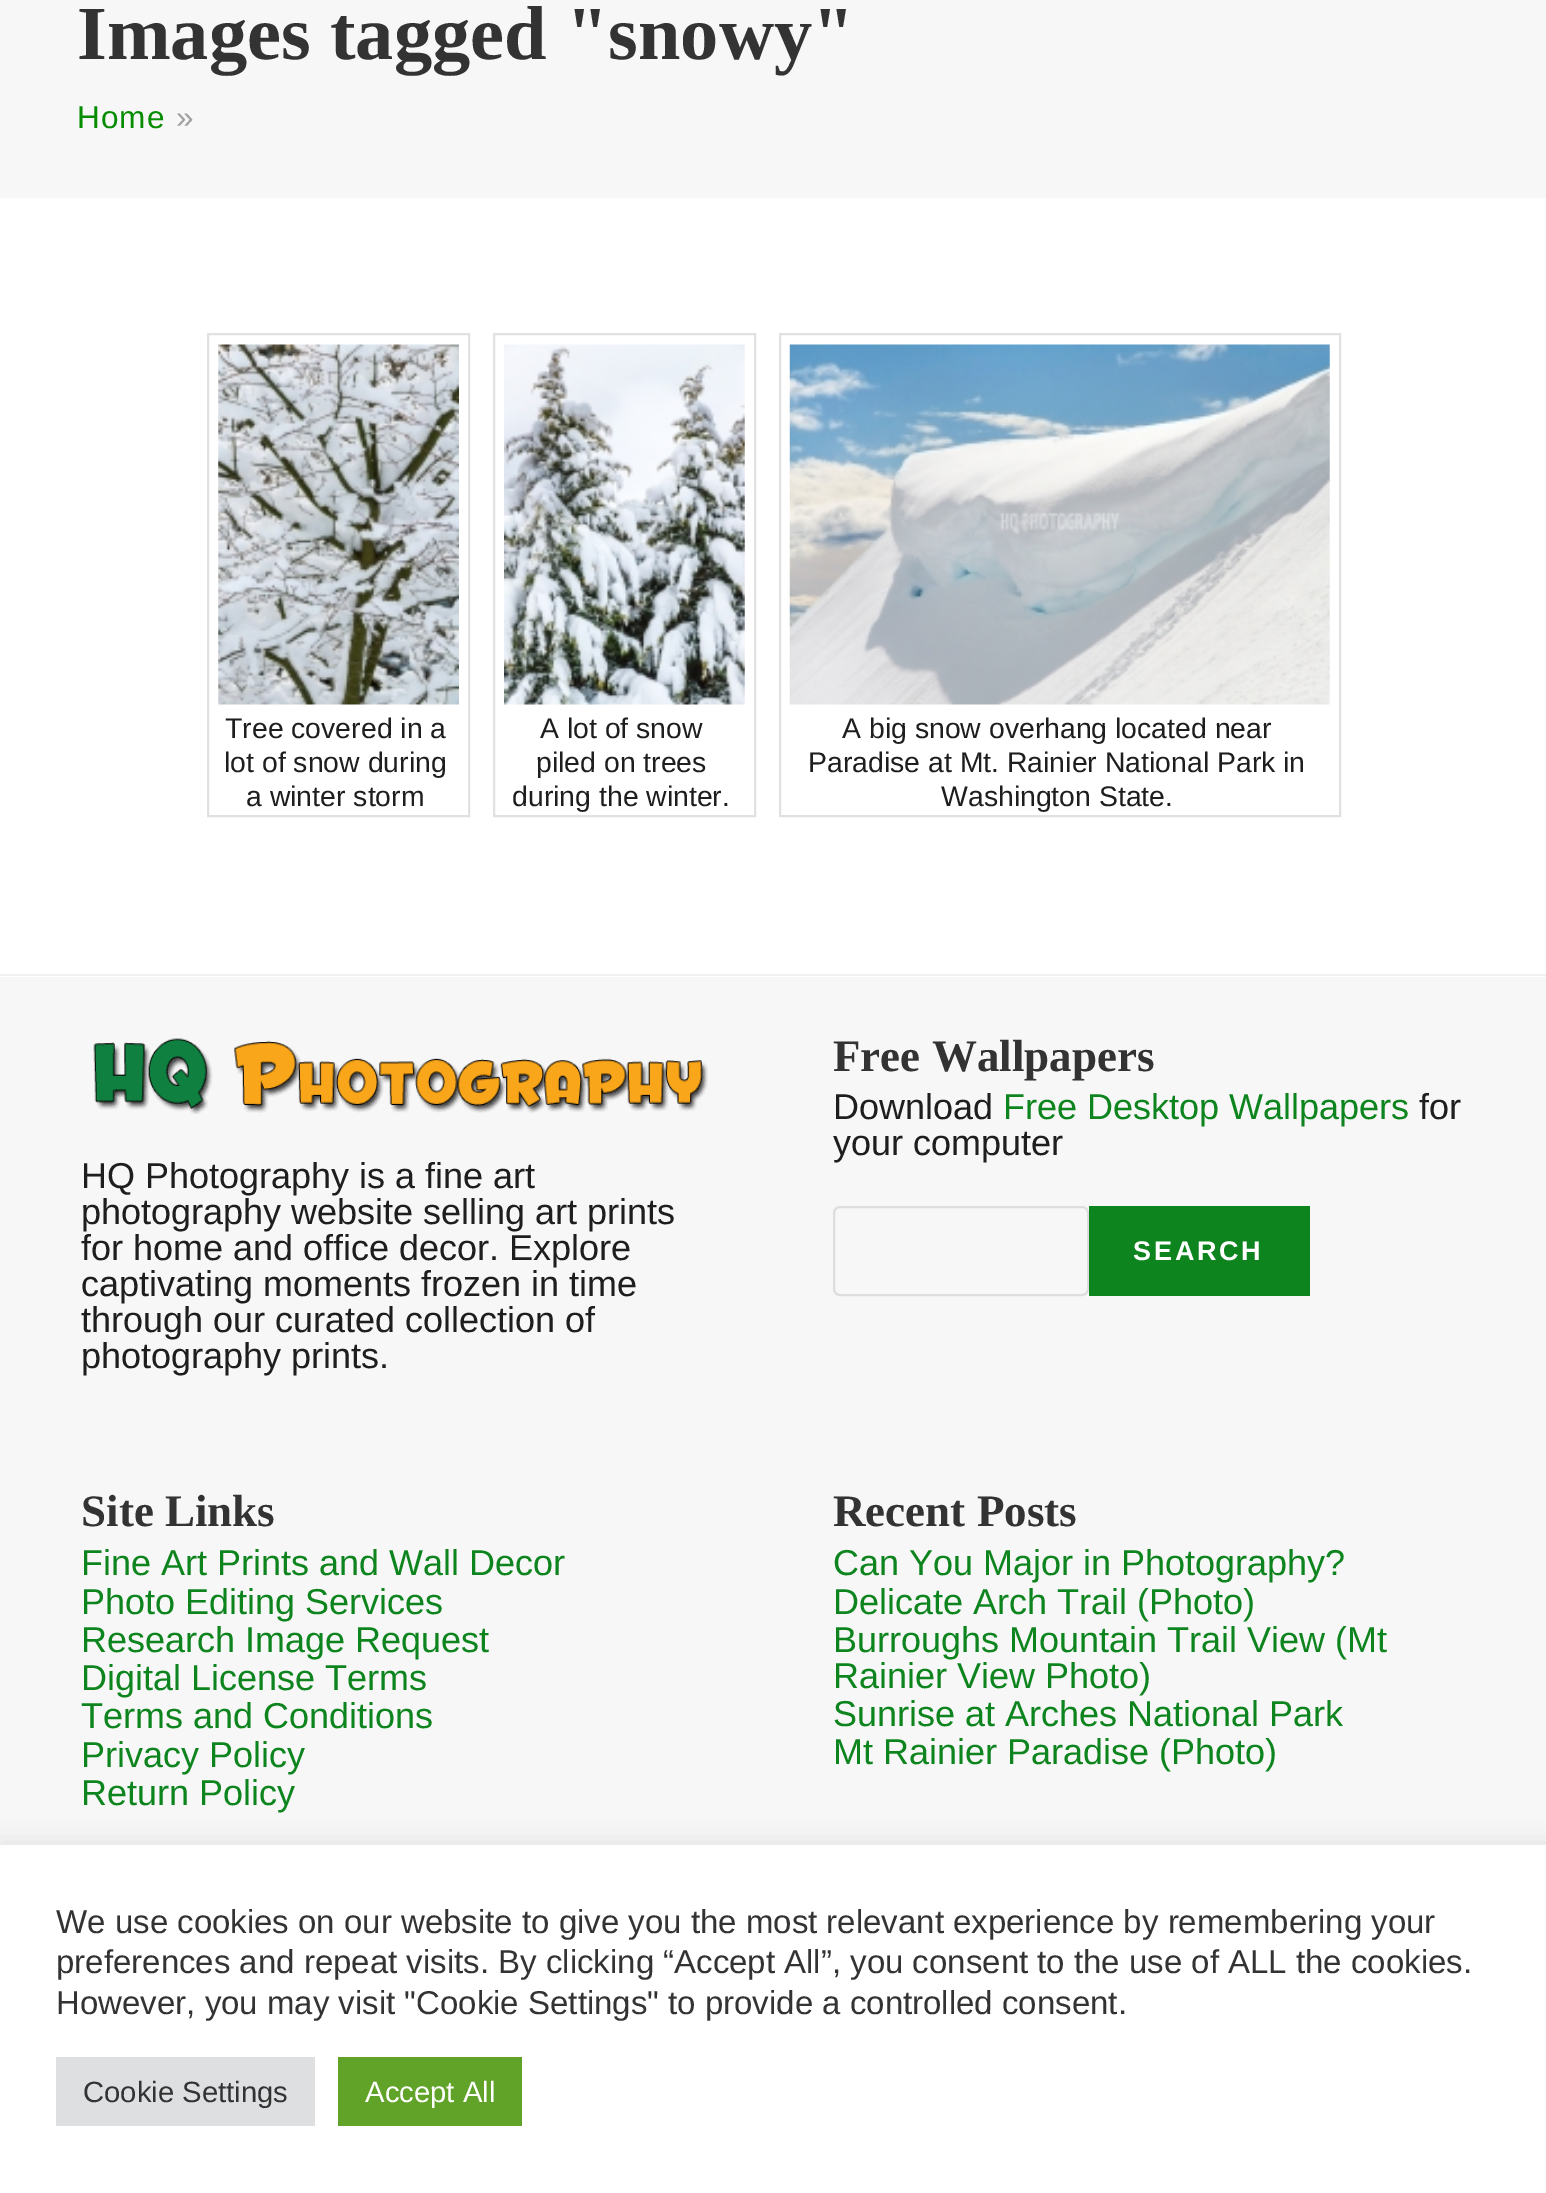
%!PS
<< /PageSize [1546 2193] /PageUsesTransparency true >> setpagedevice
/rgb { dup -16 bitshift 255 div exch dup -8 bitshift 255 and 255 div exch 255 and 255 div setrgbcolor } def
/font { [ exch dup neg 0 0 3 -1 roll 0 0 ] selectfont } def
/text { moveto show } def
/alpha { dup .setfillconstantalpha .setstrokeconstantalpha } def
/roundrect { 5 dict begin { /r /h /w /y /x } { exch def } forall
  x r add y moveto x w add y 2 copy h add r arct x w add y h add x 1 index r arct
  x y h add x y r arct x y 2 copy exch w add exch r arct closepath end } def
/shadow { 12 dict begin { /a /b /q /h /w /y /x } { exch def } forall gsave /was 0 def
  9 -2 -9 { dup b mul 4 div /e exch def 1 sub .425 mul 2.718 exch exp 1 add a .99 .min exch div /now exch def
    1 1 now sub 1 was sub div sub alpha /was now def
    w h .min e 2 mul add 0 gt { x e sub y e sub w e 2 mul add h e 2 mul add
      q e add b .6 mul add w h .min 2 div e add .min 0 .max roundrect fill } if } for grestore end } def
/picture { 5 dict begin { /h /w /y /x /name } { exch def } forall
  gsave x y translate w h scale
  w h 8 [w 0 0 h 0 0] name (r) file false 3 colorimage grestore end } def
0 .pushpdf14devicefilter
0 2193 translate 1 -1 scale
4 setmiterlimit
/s1 { /LiberationSerif-Bold 76.5 font 16#333333 rgb } def
/s2 { /LiberationSans-Regular 28.4 font 16#1E1E1E rgb } def
/s3 { /LiberationSans-Regular 36 font 16#1E1E1E rgb } def
/s4 { /LiberationSerif-Bold 45 font 16#333333 rgb } def
/s5 { /LiberationSans-Regular 36 font 16#0D841D rgb } def
/s6 { /LiberationSans-Regular 33 font 16#333333 rgb } def
/s7 { /LiberationSans-Regular 29.25 font 16#333333 rgb } def
/s8 { /LiberationSans-Regular 29.25 font 16#FFFFFF rgb } def
16#FFFFFF rgb
0 0 1546 2193 rectfill
16#F7F7F7 rgb
0 0 1546 198 rectfill
s1
(Images tagged "snowy") 77 59 text
/LiberationSans-Regular 31.5 font
16#068C01 rgb
77 128 moveto 1 0 (Home) ashow
16#A0A0A0 rgb
176 128 moveto 1 0 (») ashow
16#E1E1E1 rgb
2 setlinewidth
208 334 261 482 rectstroke
(pic1.raw) 218 344 241 361 picture
s2
(Tree covered in a) 225 738 text
(lot of snow during) 224 772 text
(a winter storm) 246 806 text
16#E1E1E1 rgb
494 334 261 482 rectstroke
(pic2.raw) 504 344 241 361 picture
s2
(A lot of snow) 540 738 text
(piled on trees) 536 772 text
(during the winter.) 512 806 text
16#E1E1E1 rgb
780 334 560 482 rectstroke
(pic3.raw) 789 344 541 361 picture
s2
(A big snow overhang located near) 842 738 text
(Paradise at Mt. Rainier National Park in) 808 772 text
(Washington State.) 941 806 text
16#F1F1F1 rgb
0 974 1546 2 rectfill
16#F7F7F7 rgb
0 977 1546 868 rectfill
(pic4.raw) 93 1038 615 76 picture
s3
(HQ Photography is a fine art) 81 1188 text
(photography website selling art prints) 81 1224 text
(for home and office decor. Explore) 81 1260 text
(captivating moments frozen in time) 81 1296 text
(through our curated collection of) 81 1332 text
(photography prints.) 81 1368 text
s4
(Free Wallpapers) 833 1071 text
s3
(Download) 833 1119 text
s5
(Free Desktop Wallpapers) 1003 1119 text
s3
(for) 1419 1119 text
(your computer) 833 1155 text
16#DDDDDD rgb
834 1207 254 88 6 roundrect stroke
16#0D841D rgb
1089 1206 221 90 rectfill
/LiberationSans-Bold 27 font
16#FFFFFF rgb
1133 1260 moveto 2.75 0 (SEARCH) ashow
s4
(Site Links) 81 1526 text
s5
(Fine Art Prints and Wall Decor) 81 1575 text
(Photo Editing Services) 81 1614 text
(Research Image Request) 81 1652 text
(Digital License Terms) 81 1690 text
(Terms and Conditions) 81 1728 text
(Privacy Policy) 81 1767 text
(Return Policy) 81 1805 text
s4
(Recent Posts) 833 1526 text
s5
(Can You Major in Photography?) 833 1575 text
(Delicate Arch Trail \(Photo\)) 833 1614 text
(Burroughs Mountain Trail View \(Mt) 833 1652 text
(Rainier View Photo\)) 833 1688 text
(Sunrise at Arches National Park) 833 1726 text
(Mt Rainier Paradise \(Photo\)) 833 1764 text
16#ACABAB rgb
0 1843 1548 349 0 11 0.3 shadow
16#FFFFFF rgb
0 1845 1546 348 rectfill
s6
(We use cookies on our website to give you the most relevant experience by remembering your) 56 1933 text
(preferences and repeat visits. By clicking “Accept All”, you consent to the use of ALL the cookies.) 56 1973 text
(However, you may visit "Cookie Settings" to provide a controlled consent.) 56 2014 text
16#DEDFE0 rgb
56 2057 259 69 rectfill
s7
(Cookie Settings) 83 2102 text
16#61A229 rgb
338 2057 184 69 rectfill
s8
(Accept All) 365 2102 text
.poppdf14devicefilter showpage
